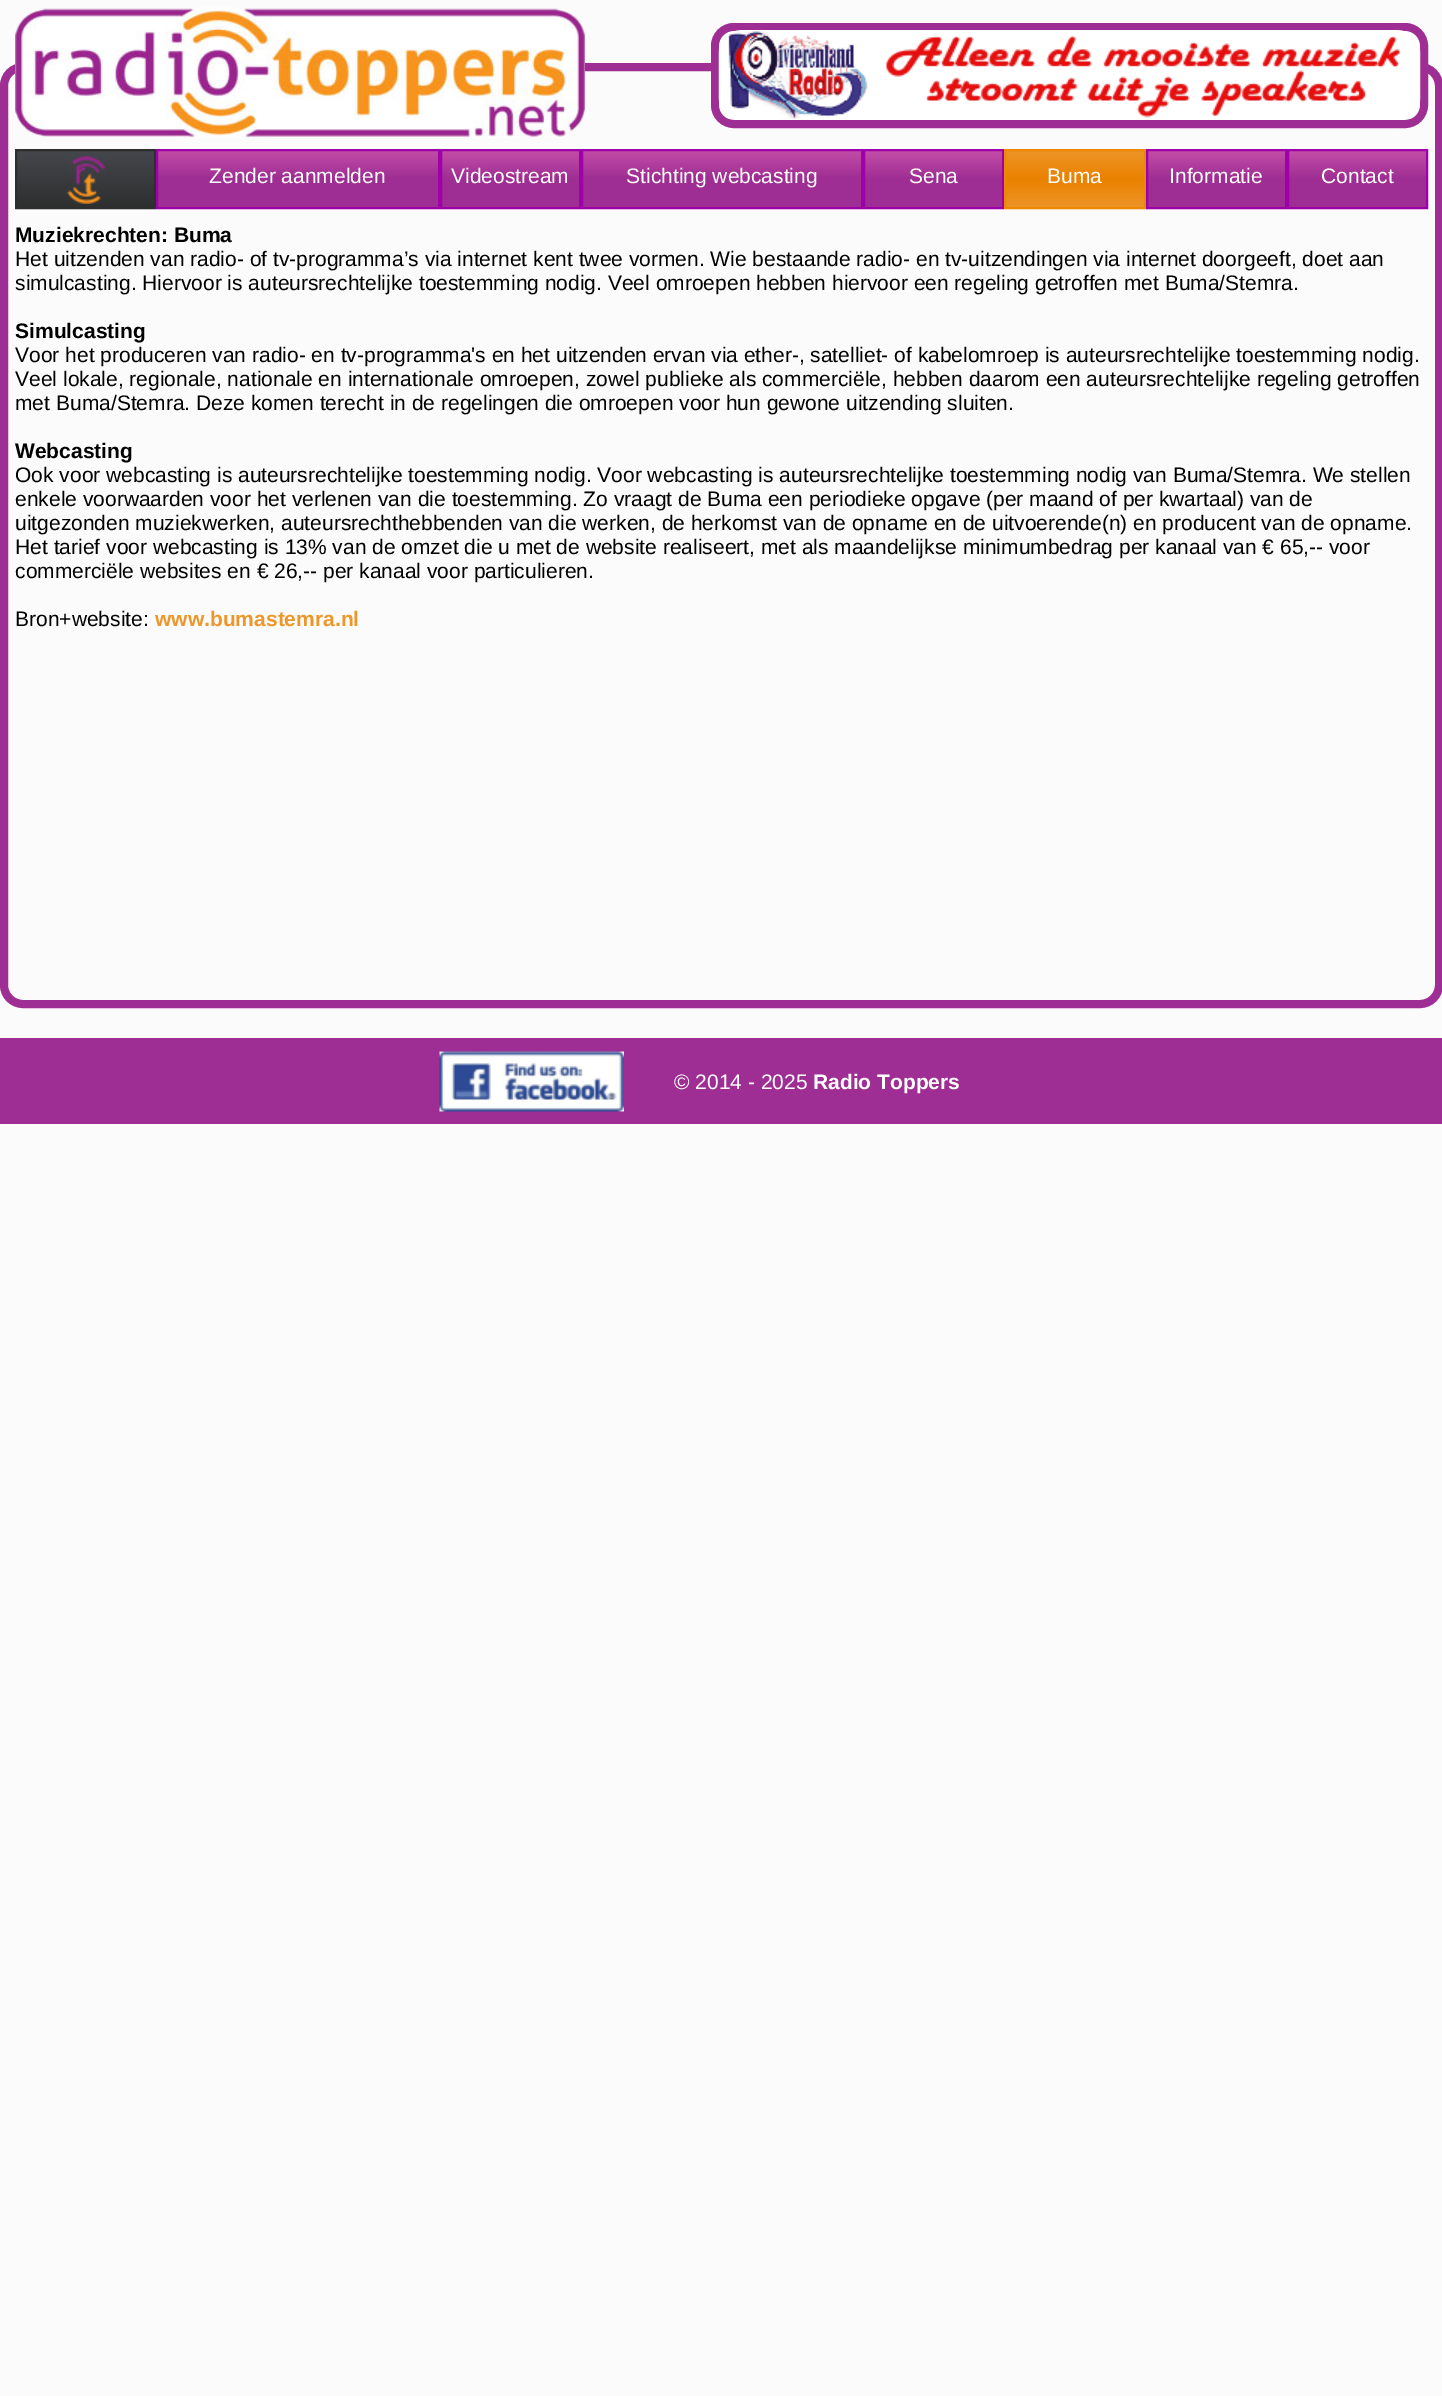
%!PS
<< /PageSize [1442 2396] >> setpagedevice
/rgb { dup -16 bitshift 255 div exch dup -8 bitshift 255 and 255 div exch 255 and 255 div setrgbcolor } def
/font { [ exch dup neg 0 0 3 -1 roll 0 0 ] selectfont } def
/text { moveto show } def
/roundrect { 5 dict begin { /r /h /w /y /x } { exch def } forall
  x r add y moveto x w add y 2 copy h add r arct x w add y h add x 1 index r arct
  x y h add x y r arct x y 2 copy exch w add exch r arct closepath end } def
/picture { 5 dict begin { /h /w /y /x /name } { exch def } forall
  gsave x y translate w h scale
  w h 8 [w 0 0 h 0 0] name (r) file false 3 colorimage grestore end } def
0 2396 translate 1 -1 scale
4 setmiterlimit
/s1 { /LiberationSans-Regular 21 font 16#FFFFFF rgb } def
/s2 { /LiberationSans-Bold 21 font 16#000000 rgb } def
/s3 { /LiberationSans-Regular 21 font 16#000000 rgb } def
/s4 { /LiberationSans-Bold 21 font 16#ED972A rgb } def
/s5 { /LiberationSans-Bold 21 font 16#FFFFFF rgb } def
16#FBFBFB rgb
0 0 1442 2396 rectfill
16#9E2E93 rgb
8 setlinewidth
4 67 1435 937 19 roundrect stroke
(pic1.raw) 15 7 570 131 picture
16#FFFFFF rgb
715 27 709 97 19 roundrect gsave fill grestore
16#9E2E93 rgb
stroke
(pic2.raw) 718 30 703 89 picture
gsave 17 151 moveto 154 151 lineto 154 207 lineto 17 207 lineto closepath clip newpath
<< /ShadingType 2 /ColorSpace /DeviceRGB /Coords [86 149 86 209] /Extend [true true] /Function << /FunctionType 3 /Domain [0 1] /Functions [<< /FunctionType 2 /Domain [0 1] /C0 [0.271 0.282 0.302] /C1 [0.18 0.18 0.18] /N 1 >> << /FunctionType 2 /Domain [0 1] /C0 [0.18 0.18 0.18] /C1 [0.18 0.18 0.18] /N 1 >>] /Bounds [0.99] /Encode [0 1 0 1] >> >> shfill grestore
16#2E2E2E rgb
2 setlinewidth
16 150 139 58 rectstroke
(pic3.raw) 67 156 38 48 picture
gsave 158 151 moveto 438 151 lineto 438 207 lineto 158 207 lineto closepath clip newpath
<< /ShadingType 2 /ColorSpace /DeviceRGB /Coords [298 148 298 209] /Extend [true true] /Function << /FunctionType 3 /Domain [0 1] /Functions [<< /FunctionType 2 /Domain [0 1] /C0 [0.776 0.31 0.663] /C1 [0.62 0.18 0.576] /N 1 >> << /FunctionType 2 /Domain [0 1] /C0 [0.62 0.18 0.576] /C1 [0.62 0.18 0.576] /N 1 >>] /Bounds [0.5] /Encode [0 1 0 1] >> >> shfill grestore
16#9E00A9 rgb
157 150 282 58 rectstroke
s1
(Zender aanmelden) 209 183 text
gsave 442 151 moveto 579 151 lineto 579 207 lineto 442 207 lineto closepath clip newpath
<< /ShadingType 2 /ColorSpace /DeviceRGB /Coords [510 149 510 209] /Extend [true true] /Function << /FunctionType 3 /Domain [0 1] /Functions [<< /FunctionType 2 /Domain [0 1] /C0 [0.776 0.31 0.663] /C1 [0.62 0.18 0.576] /N 1 >> << /FunctionType 2 /Domain [0 1] /C0 [0.62 0.18 0.576] /C1 [0.62 0.18 0.576] /N 1 >>] /Bounds [0.5] /Encode [0 1 0 1] >> >> shfill grestore
16#9E00A9 rgb
441 150 139 58 rectstroke
s1
(Videostream) 451 183 text
gsave 583 151 moveto 861 151 lineto 861 207 lineto 583 207 lineto closepath clip newpath
<< /ShadingType 2 /ColorSpace /DeviceRGB /Coords [722 148 722 209] /Extend [true true] /Function << /FunctionType 3 /Domain [0 1] /Functions [<< /FunctionType 2 /Domain [0 1] /C0 [0.776 0.31 0.663] /C1 [0.62 0.18 0.576] /N 1 >> << /FunctionType 2 /Domain [0 1] /C0 [0.62 0.18 0.576] /C1 [0.62 0.18 0.576] /N 1 >>] /Bounds [0.5] /Encode [0 1 0 1] >> >> shfill grestore
16#9E00A9 rgb
582 150 280 58 rectstroke
s1
(Stichting webcasting) 626 183 text
gsave 865 151 moveto 1002 151 lineto 1002 207 lineto 865 207 lineto closepath clip newpath
<< /ShadingType 2 /ColorSpace /DeviceRGB /Coords [933 149 933 209] /Extend [true true] /Function << /FunctionType 3 /Domain [0 1] /Functions [<< /FunctionType 2 /Domain [0 1] /C0 [0.776 0.31 0.663] /C1 [0.62 0.18 0.576] /N 1 >> << /FunctionType 2 /Domain [0 1] /C0 [0.62 0.18 0.576] /C1 [0.62 0.18 0.576] /N 1 >>] /Bounds [0.5] /Encode [0 1 0 1] >> >> shfill grestore
16#9E00A9 rgb
864 150 139 58 rectstroke
s1
(Sena) 909 183 text
gsave 1006 151 moveto 1144 151 lineto 1144 207 lineto 1006 207 lineto closepath clip newpath
<< /ShadingType 2 /ColorSpace /DeviceRGB /Coords [1075 149 1075 209] /Extend [true true] /Function << /FunctionType 3 /Domain [0 1] /Functions [<< /FunctionType 2 /Domain [0 1] /C0 [0.929 0.592 0.165] /C1 [0.918 0.506 0] /N 1 >> << /FunctionType 2 /Domain [0 1] /C0 [0.918 0.506 0] /C1 [0.929 0.592 0.165] /N 1 >>] /Bounds [0.5] /Encode [0 1 0 1] >> >> shfill grestore
16#ED8803 rgb
1005 150 140 58 rectstroke
s1
(Buma) 1047 183 text
gsave 1148 151 moveto 1285 151 lineto 1285 207 lineto 1148 207 lineto closepath clip newpath
<< /ShadingType 2 /ColorSpace /DeviceRGB /Coords [1217 149 1217 209] /Extend [true true] /Function << /FunctionType 3 /Domain [0 1] /Functions [<< /FunctionType 2 /Domain [0 1] /C0 [0.776 0.31 0.663] /C1 [0.62 0.18 0.576] /N 1 >> << /FunctionType 2 /Domain [0 1] /C0 [0.62 0.18 0.576] /C1 [0.62 0.18 0.576] /N 1 >>] /Bounds [0.5] /Encode [0 1 0 1] >> >> shfill grestore
16#9E00A9 rgb
1147 150 139 58 rectstroke
s1
(Informatie) 1169 183 text
gsave 1289 151 moveto 1426 151 lineto 1426 207 lineto 1289 207 lineto closepath clip newpath
<< /ShadingType 2 /ColorSpace /DeviceRGB /Coords [1358 149 1358 209] /Extend [true true] /Function << /FunctionType 3 /Domain [0 1] /Functions [<< /FunctionType 2 /Domain [0 1] /C0 [0.776 0.31 0.663] /C1 [0.62 0.18 0.576] /N 1 >> << /FunctionType 2 /Domain [0 1] /C0 [0.62 0.18 0.576] /C1 [0.62 0.18 0.576] /N 1 >>] /Bounds [0.5] /Encode [0 1 0 1] >> >> shfill grestore
16#9E00A9 rgb
1288 150 139 58 rectstroke
s1
(Contact) 1321 183 text
s2
(Muziekrechten: Buma) 15 242 text
s3
(Het uitzenden van radio- of tv-programma’s via internet kent twee vormen. Wie bestaande radio- en tv-uitzendingen via internet doorgeeft, doet aan) 15 266 text
(simulcasting. Hiervoor is auteursrechtelijke toestemming nodig. Veel omroepen hebben hiervoor een regeling getroffen met Buma/Stemra.) 15 290 text
s2
(Simulcasting) 15 338 text
s3
(Voor het produceren van radio- en tv-programma's en het uitzenden ervan via ether-, satelliet- of kabelomroep is auteursrechtelijke toestemming nodig.) 15 362 text
(Veel lokale, regionale, nationale en internationale omroepen, zowel publieke als commerciële, hebben daarom een auteursrechtelijke regeling getroffen) 15 386 text
(met Buma/Stemra. Deze komen terecht in de regelingen die omroepen voor hun gewone uitzending sluiten.) 15 410 text
s2
(Webcasting) 15 458 text
s3
(Ook voor webcasting is auteursrechtelijke toestemming nodig. Voor webcasting is auteursrechtelijke toestemming nodig van Buma/Stemra. We stellen) 15 482 text
(enkele voorwaarden voor het verlenen van die toestemming. Zo vraagt de Buma een periodieke opgave \(per maand of per kwartaal\) van de) 15 506 text
(uitgezonden muziekwerken, auteursrechthebbenden van die werken, de herkomst van de opname en de uitvoerende\(n\) en producent van de opname.) 15 530 text
(Het tarief voor webcasting is 13% van de omzet die u met de website realiseert, met als maandelijkse minimumbedrag per kanaal van € 65,-- voor) 15 554 text
(commerciële websites en € 26,-- per kanaal voor particulieren.) 15 578 text
(Bron+website:) 15 626 text
s4
(www.bumastemra.nl) 155 626 text
16#9E2E93 rgb
0 1038 1442 86 rectfill
(pic4.raw) 439 1051 185 61 picture
s1
(© 2014 - 2025) 674 1089 text
s5
(Radio Toppers) 813 1089 text
showpage
